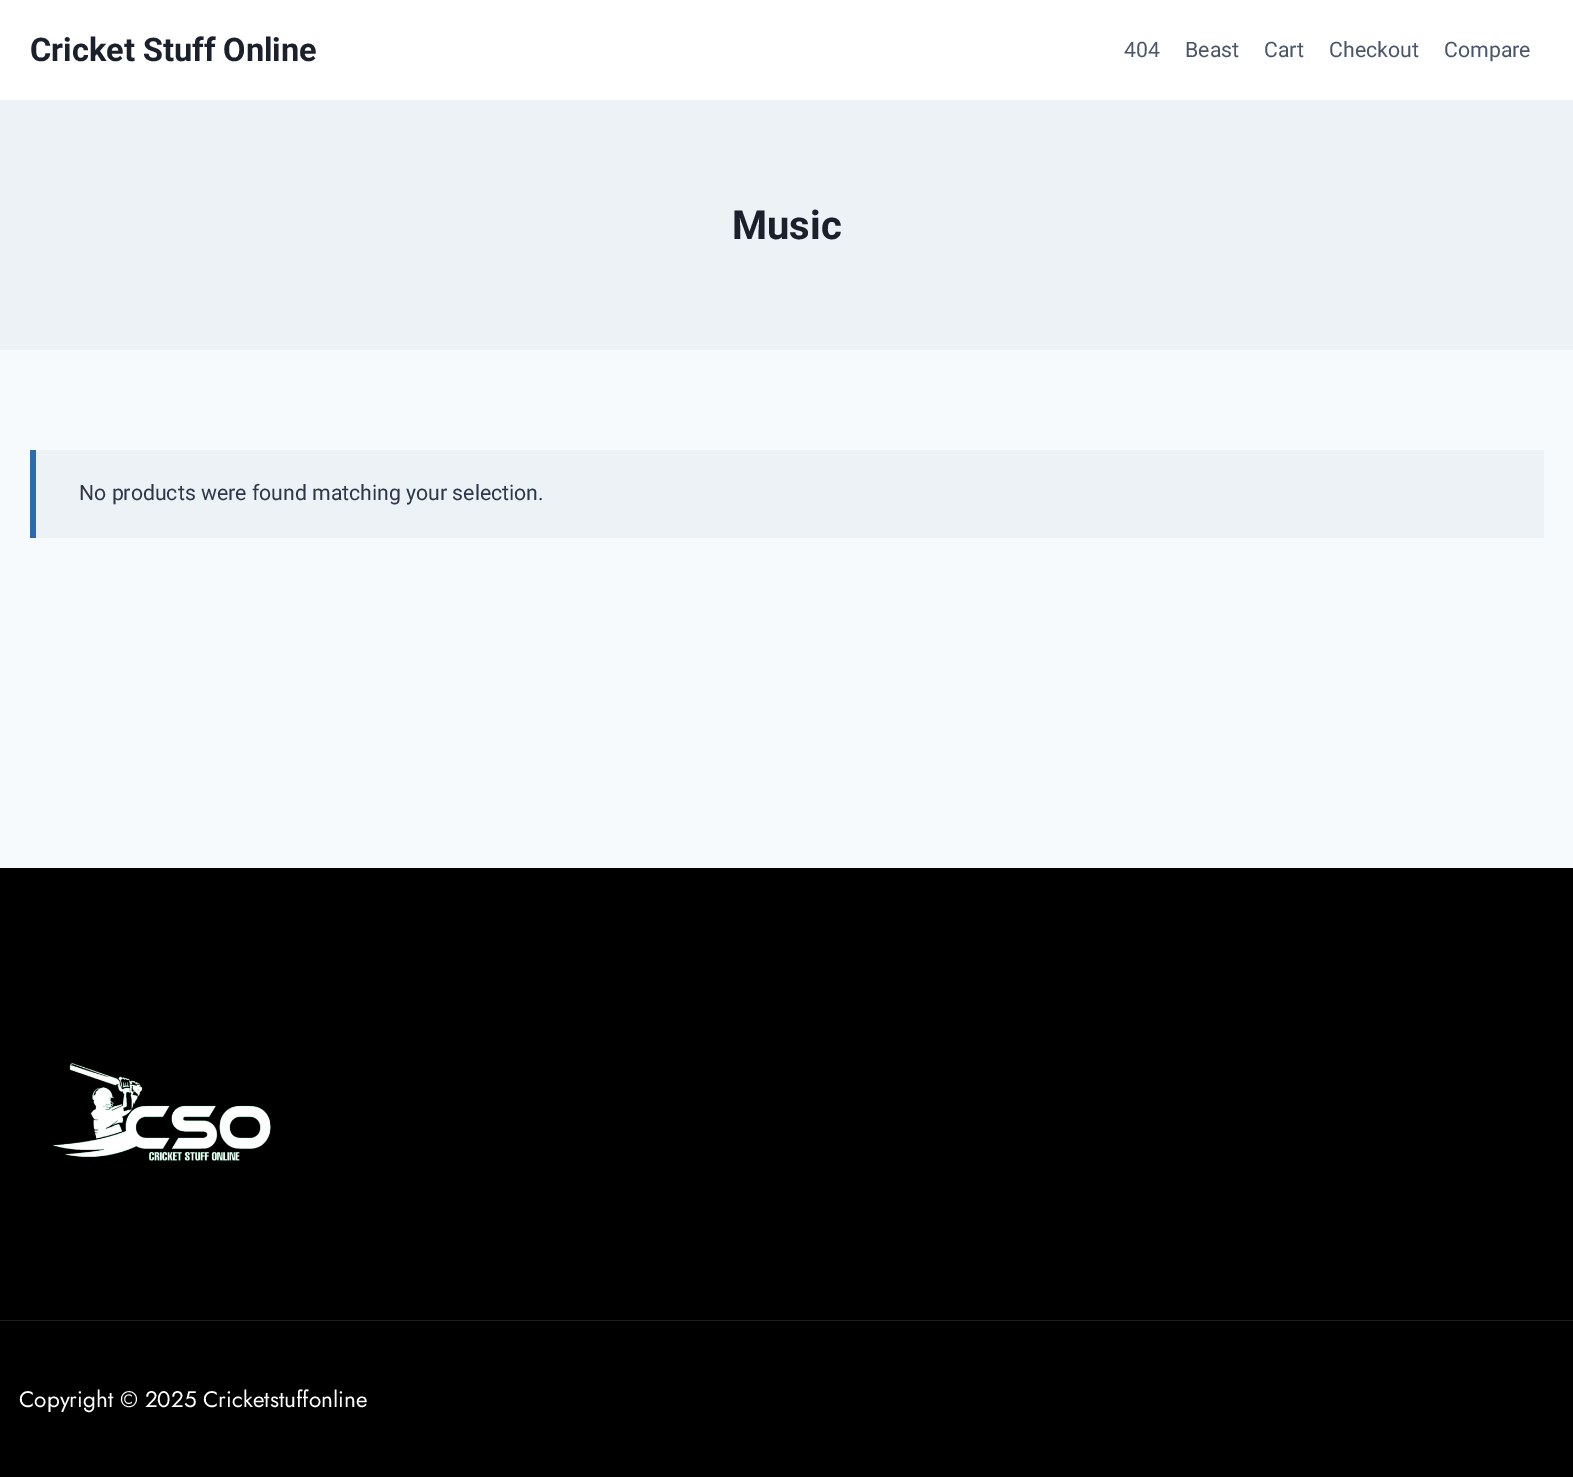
%!PS
<< /PageSize [1573 1477] >> setpagedevice
/rgb { dup -16 bitshift 255 div exch dup -8 bitshift 255 and 255 div exch 255 and 255 div setrgbcolor } def
/font { [ exch dup neg 0 0 3 -1 roll 0 0 ] selectfont } def
/text { moveto show } def
/picture { 5 dict begin { /h /w /y /x /name } { exch def } forall
  gsave x y translate w h scale
  w h 8 [w 0 0 h 0 0] name (r) file false 3 colorimage grestore end } def
0 1477 translate 1 -1 scale
4 setmiterlimit
/s1 { /Roboto-Bold 32.5 font 16#1A202C rgb } def
/s2 { /Roboto-Regular 21.25 font 16#4A5568 rgb } def
/s3 { /Roboto-Bold 40 font 16#1A202C rgb } def
/s4 { /Roboto-Regular 21.25 font 16#2D3748 rgb } def
/s5 { /Jost-Regular 22.5 font 16#FFFFFF rgb } def
16#F7FAFC rgb
0 0 1573 1477 rectfill
16#FFFFFF rgb
0 0 1573 100 rectfill
s1
(Cricket Stuff Online) 30 61 text
s2
(404) 1124 57 text
(Beast) 1185 57 text
(Cart) 1264 57 text
(Checkout) 1329 57 text
(Compare) 1444 57 text
16#EDF2F7 rgb
0 100 1573 250 rectfill
s3
(Music) 732 239 text
16#EDF2F7 rgb
36 450 1508 88 rectfill
16#2B6CB0 rgb
30 450 6 88 rectfill
s4
(No products were found matching your selection.) 79 500 text
16#000000 rgb
0 868 1573 452 rectfill
(pic1.raw) 53 1063 218 98 picture
0 1321 1573 156 rectfill
16#1F1F1F rgb
0 1320 1573 1 rectfill
s5
(Copyright © 2025 Cricketstuffonline) 19 1407 text
showpage
